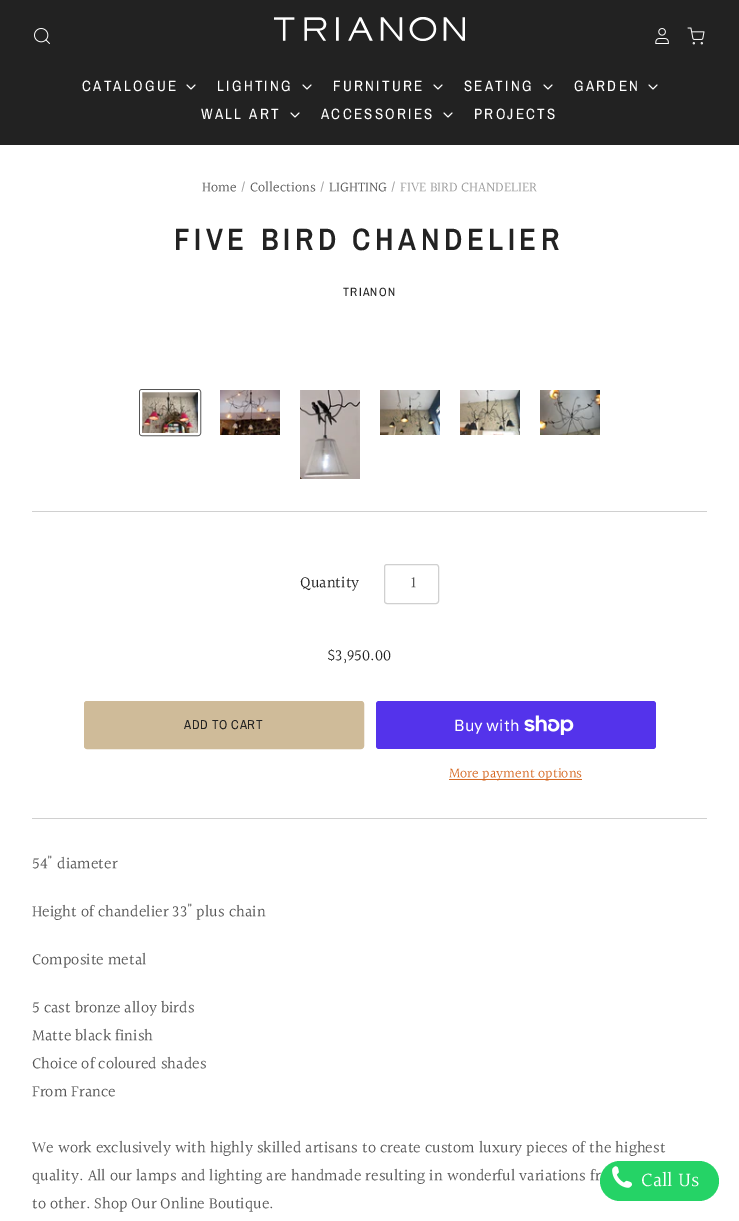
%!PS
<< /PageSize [739 1221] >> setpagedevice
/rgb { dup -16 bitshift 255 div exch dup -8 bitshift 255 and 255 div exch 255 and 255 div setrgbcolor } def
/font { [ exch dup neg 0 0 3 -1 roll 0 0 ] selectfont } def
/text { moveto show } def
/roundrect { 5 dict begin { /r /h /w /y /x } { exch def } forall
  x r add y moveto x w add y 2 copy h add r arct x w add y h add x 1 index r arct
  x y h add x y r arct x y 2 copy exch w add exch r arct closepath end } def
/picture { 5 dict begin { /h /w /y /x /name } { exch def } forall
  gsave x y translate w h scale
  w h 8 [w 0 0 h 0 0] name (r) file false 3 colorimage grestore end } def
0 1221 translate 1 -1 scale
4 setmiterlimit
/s1 { /Halant-Regular 14 font 16#555555 rgb } def
/s2 { /Halant-Regular 14 font 16#999999 rgb } def
/s3 { /Halant-Regular 16 font 16#222222 rgb } def
/s4 { /Halant-Regular 16 font 16#555555 rgb } def
/s5 { /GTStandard-Regular 16 font 16#FFFFFF rgb } def
/s6 { /Halant-Regular 14 font 16#D66A25 rgb } def
/s7 { /Halant-Regular 20 font 16#FFFFFF rgb } def
16#FFFFFF rgb
0 0 739 1221 rectfill
16#222222 rgb
0 0 739 145 rectfill
(pic1.raw) 34 28 16 16 picture
(pic2.raw) 274 17 191 24 picture
(pic3.raw) 655 28 14 16 picture
(pic4.raw) 687 27 18 18 picture
/ArchivoNarrow-Regular 15 font
16#FFFFFF rgb
82 91 moveto 2.25 0 (CATALOGUE) ashow
0.8 setlinewidth
1 setlinecap
1 setlinejoin
187 85 moveto 191 89 lineto 195 85 lineto stroke
217 91 moveto 2.25 0 (LIGHTING) ashow
303 85 moveto 307 89 lineto 311 85 lineto stroke
333 91 moveto 2.25 0 (FURNITURE) ashow
434 85 moveto 438 89 lineto 442 85 lineto stroke
464 91 moveto 2.25 0 (SEATING) ashow
544 85 moveto 548 89 lineto 552 85 lineto stroke
574 91 moveto 2.25 0 (GARDEN) ashow
649 85 moveto 653 89 lineto 657 85 lineto stroke
201 119 moveto 2.25 0 (WALL ART) ashow
291 113 moveto 295 117 lineto 299 113 lineto stroke
321 119 moveto 2.25 0 (ACCESSORIES) ashow
444 113 moveto 448 117 lineto 452 113 lineto stroke
474 119 moveto 2.25 0 (PROJECTS) ashow
s1
(Home) 202 192 text
s2
(/) 240 192 text
s1
(Collections) 250 192 text
s2
(/) 319 192 text
s1
(LIGHTING) 329 192 text
s2
(/ FIVE BIRD CHANDELIER) 390 192 text
/ArchivoNarrow-SemiBold 31 font
16#222222 rgb
174 250 moveto 4.6 0 (FIVE BIRD CHANDELIER) ashow
/ArchivoNarrow-Regular 12 font
343 296 moveto 1.25 0 (TRIANON) ashow
(pic5.raw) 140 390 60 45 picture
16#555555 rgb
1 setlinewidth
0 setlinecap
0 setlinejoin
139.5 389.5 61 46 2.5 roundrect stroke
16#FFFFFF rgb
2 setlinewidth
141 391 58 43 1 roundrect stroke
(pic6.raw) 220 390 60 45 picture
(pic7.raw) 300 390 60 89 picture
(pic8.raw) 380 390 60 45 picture
(pic9.raw) 460 390 60 45 picture
(pic10.raw) 540 390 60 45 picture
16#D0D0D0 rgb
32 511 675 1 rectfill
s3
(Quantity) 300 588 text
16#D0D0D0 rgb
1 setlinewidth
384.5 564.5 54 39 2.5 roundrect stroke
s4
(1) 411 588 text
s3
($3,950.00) 327 661 text
16#CFBB99 rgb
84.5 701.5 279 47 2.5 roundrect gsave fill grestore
stroke
/ArchivoNarrow-Regular 13 font
16#222222 rgb
184 729 moveto 0.6 0 (ADD TO CART) ashow
16#5433EB rgb
376 701 280 48 3 roundrect fill
s5
(Buy with) 454 731 text
(pic11.raw) 524 715 50 20 picture
16#D66A25 rgb
449 779 133 1 rectfill
s6
(More payment options) 449 778 text
16#D0D0D0 rgb
32 818 675 1 rectfill
s4
(54" diameter) 32 869 text
(Height of chandelier 33" plus chain) 32 917 text
(Composite metal) 32 965 text
(5 cast bronze alloy birds) 32 1013 text
(Matte black finish) 32 1041 text
(Choice of coloured shades) 32 1069 text
(From France) 32 1097 text
(We work exclusively with highly skilled artisans to create custom luxury pieces of the highest) 32 1153 text
(quality. All our lamps and lighting are handmade resulting in wonderful variations fr) 32 1181 text
(to other. Shop Our Online Boutique.) 32 1209 text
16#25D366 rgb
600 1161 119 40 20 roundrect fill
(pic12.raw) 612 1166 20 22 picture
s7
(Call Us) 641 1187 text
showpage
